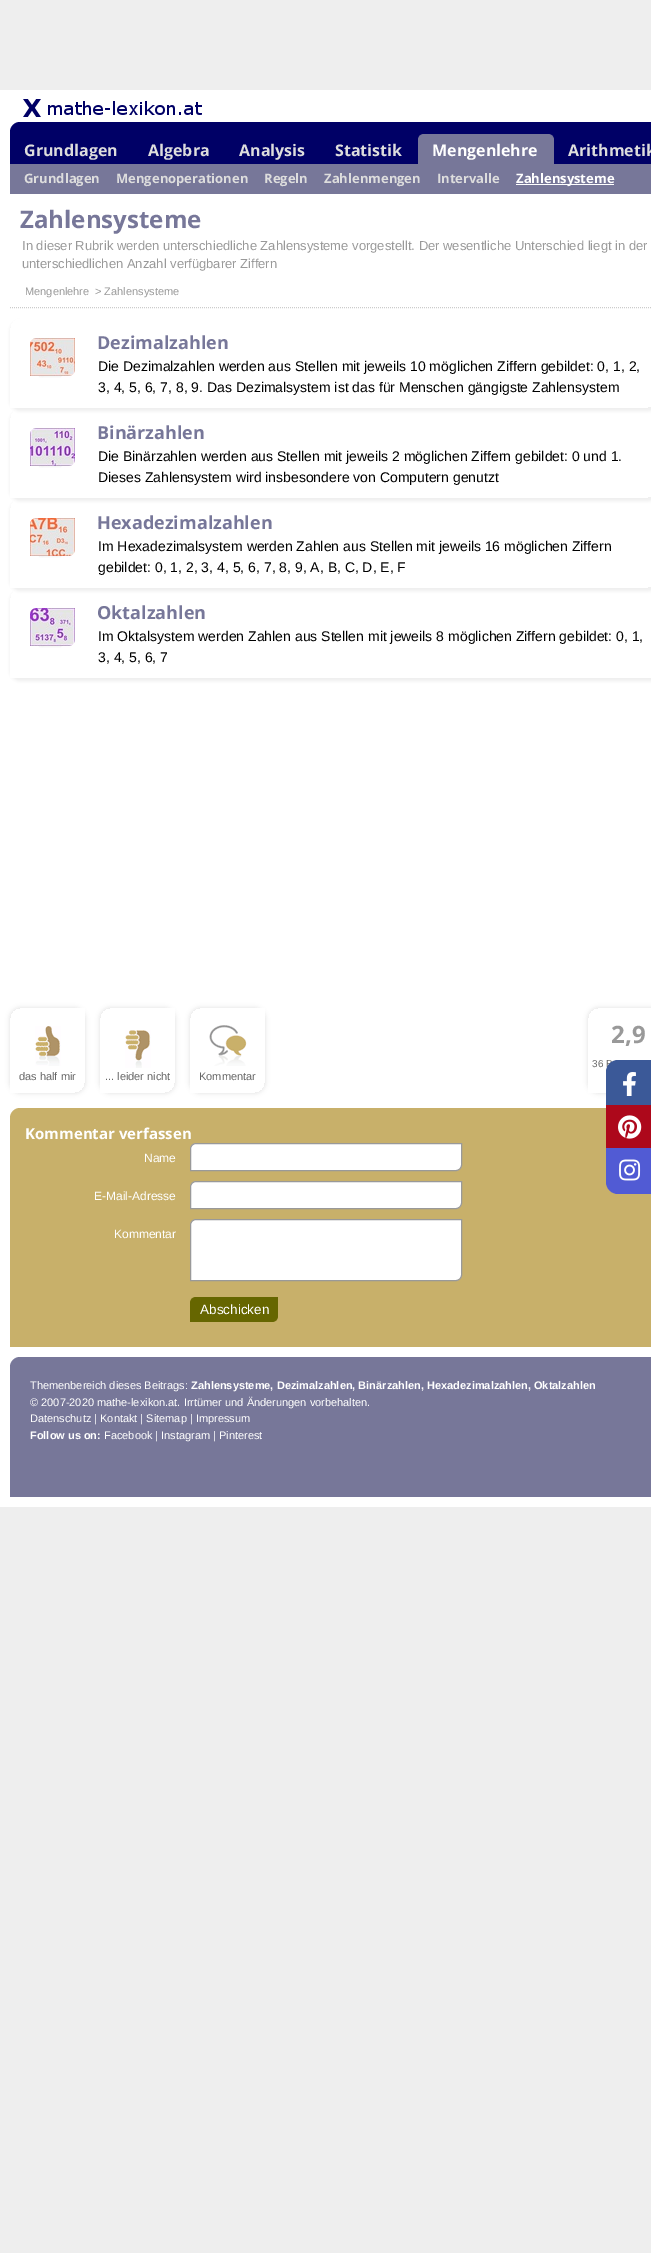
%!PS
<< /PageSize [651 2253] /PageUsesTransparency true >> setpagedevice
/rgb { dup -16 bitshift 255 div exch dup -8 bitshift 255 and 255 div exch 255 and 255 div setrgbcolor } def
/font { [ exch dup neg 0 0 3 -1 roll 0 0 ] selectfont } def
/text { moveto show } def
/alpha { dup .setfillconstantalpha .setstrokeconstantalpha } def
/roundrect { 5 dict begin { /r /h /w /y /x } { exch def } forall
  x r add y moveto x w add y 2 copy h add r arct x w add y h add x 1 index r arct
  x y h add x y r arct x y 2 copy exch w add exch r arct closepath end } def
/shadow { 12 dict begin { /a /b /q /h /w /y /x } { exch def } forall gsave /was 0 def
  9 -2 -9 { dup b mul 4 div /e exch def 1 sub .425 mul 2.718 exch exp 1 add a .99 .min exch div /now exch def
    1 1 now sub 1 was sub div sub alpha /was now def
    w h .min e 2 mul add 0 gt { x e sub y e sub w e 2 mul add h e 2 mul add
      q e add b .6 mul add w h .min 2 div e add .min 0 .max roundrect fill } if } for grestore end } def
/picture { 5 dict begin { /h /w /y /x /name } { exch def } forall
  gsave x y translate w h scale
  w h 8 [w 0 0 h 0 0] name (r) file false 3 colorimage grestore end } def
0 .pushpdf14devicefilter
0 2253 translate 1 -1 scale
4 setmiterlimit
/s1 { /OpenSans-Bold 16 font 16#DDDDDD rgb } def
/s2 { /OpenSans-Bold 16 font 16#FFFFFF rgb } def
/s3 { /OpenSans-Bold 13 font 16#DDDDDD rgb } def
/s4 { /OpenSans-Bold 13 font 16#FFFFFF rgb } def
/s5 { /OpenSans-Bold 24 font 16#777799 rgb } def
/s6 { /LiberationSans-Regular 13 font 16#999999 rgb } def
/s7 { /LiberationSans-Regular 11 font 16#999999 rgb } def
/s8 { /OpenSans-Bold 18 font 16#777799 rgb } def
/s9 { /LiberationSans-Regular 14 font 16#000000 rgb } def
/s10 { /OpenSans-Bold 24 font 16#999999 rgb } def
/s11 { /LiberationSans-Regular 10 font 16#666666 rgb } def
/s12 { /LiberationSans-Regular 11 font 16#666666 rgb } def
/s13 { /OpenSans-Bold 15 font 16#FFFFFF rgb } def
/s14 { /LiberationSans-Regular 12 font 16#FFFFFF rgb } def
/s15 { /LiberationSans-Regular 13.5 font 16#FFFFFF rgb } def
/s16 { /LiberationSans-Regular 11 font 16#FFFFFF rgb } def
/s17 { /LiberationSans-Bold 11 font 16#FFFFFF rgb } def
16#EEEEEE rgb
0 0 651 2253 rectfill
16#FFFFFF rgb
0 90 651 1417 rectfill
16#000066 rgb
20 122 moveto 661 122 lineto 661 164 lineto 10 164 lineto 10 132 lineto 10 126.5 14.5 122 20 122 curveto closepath fill
(pic1.raw) 23 99 179 18 picture
s1
(Grundlagen) 24 156 text
(Algebra) 148 156 text
(Analysis) 239 156 text
(Statistik) 335 156 text
16#777799 rgb
424 134 moveto 548 134 lineto 551.5 134 554 136.5 554 140 curveto 554 164 lineto 418 164 lineto 418 140 lineto 418 136.5 420.5 134 424 134 curveto closepath fill
s2
(Mengenlehre) 432 156 text
s1
(Arithmetik) 568 156 text
16#777799 rgb
10 164 641 30 rectfill
s3
(Grundlagen) 24 183 text
(Mengenoperationen) 116 183 text
(Regeln) 264 183 text
(Zahlenmengen) 324 183 text
(Intervalle) 437 183 text
16#FFFFFF rgb
516 184 98 1 rectfill
(Zahlensysteme) 516 183 text
s5
(Zahlensysteme) 20 228 text
s6
(In dieser Rubrik werden unterschiedliche Zahlensysteme vorgestellt. Der wesentliche Unterschied liegt in der) 22 250 text
(unterschiedlichen Anzahl verfügbarer Ziffern) 22 268 text
16#CCCCCC rgb
[1 1] 0 setdash
10 307.5 moveto 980 307.5 lineto stroke
s7
(Mengenlehre) 25 295 text
(> Zahlensysteme) 95 295 text
gsave
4 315 moveto 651 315 lineto 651 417 lineto 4 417 lineto closepath 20 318 moveto 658 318 lineto 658 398 lineto 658 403.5 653.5 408 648 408 curveto 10 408 lineto 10 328 lineto 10 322.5 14.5 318 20 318 curveto closepath eoclip newpath
16#EEEEEE rgb
10 321 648 90 10 1.5 1 shadow
grestore
(pic2.raw) 38 375 33 3 picture
(pic3.raw) 30 338 45 38 picture
s8
(Dezimalzahlen) 97 349 text
s9
(Die Dezimalzahlen werden aus Stellen mit jeweils 10 möglichen Ziffern gebildet: 0, 1, 2,) 98 371 text
(3, 4, 5, 6, 7, 8, 9. Das Dezimalsystem ist das für Menschen gängigste Zahlensystem) 98 392 text
gsave
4 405 moveto 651 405 lineto 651 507 lineto 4 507 lineto closepath 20 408 moveto 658 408 lineto 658 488 lineto 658 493.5 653.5 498 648 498 curveto 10 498 lineto 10 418 lineto 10 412.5 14.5 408 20 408 curveto closepath eoclip newpath
16#EEEEEE rgb
10 411 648 90 10 1.5 1 shadow
grestore
(pic2.raw) 38 465 33 3 picture
(pic4.raw) 30 428 45 38 picture
s8
(Binärzahlen) 97 439 text
s9
(Die Binärzahlen werden aus Stellen mit jeweils 2 möglichen Ziffern gebildet: 0 und 1.) 98 461 text
(Dieses Zahlensystem wird insbesondere von Computern genutzt) 98 482 text
gsave
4 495 moveto 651 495 lineto 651 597 lineto 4 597 lineto closepath 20 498 moveto 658 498 lineto 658 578 lineto 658 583.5 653.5 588 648 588 curveto 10 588 lineto 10 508 lineto 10 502.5 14.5 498 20 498 curveto closepath eoclip newpath
16#EEEEEE rgb
10 501 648 90 10 1.5 1 shadow
grestore
(pic2.raw) 38 555 33 3 picture
(pic5.raw) 30 518 45 38 picture
s8
(Hexadezimalzahlen) 97 529 text
s9
(Im Hexadezimalsystem werden Zahlen aus Stellen mit jeweils 16 möglichen Ziffern) 98 551 text
(gebildet: 0, 1, 2, 3, 4, 5, 6, 7, 8, 9, A, B, C, D, E, F) 98 572 text
gsave
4 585 moveto 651 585 lineto 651 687 lineto 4 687 lineto closepath 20 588 moveto 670 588 lineto 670 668 lineto 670 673.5 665.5 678 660 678 curveto 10 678 lineto 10 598 lineto 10 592.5 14.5 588 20 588 curveto closepath eoclip newpath
16#EEEEEE rgb
10 591 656 90 10 1.5 1 shadow
grestore
(pic2.raw) 38 645 33 3 picture
(pic6.raw) 30 608 45 38 picture
s8
(Oktalzahlen) 97 619 text
s9
(Im Oktalsystem werden Zahlen aus Stellen mit jeweils 8 möglichen Ziffern gebildet: 0, 1,) 98 641 text
(3, 4, 5, 6, 7) 98 662 text
gsave
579 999 moveto 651 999 lineto 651 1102 lineto 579 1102 lineto closepath 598 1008 moveto 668 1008 lineto 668 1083 lineto 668 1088.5 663.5 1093 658 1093 curveto 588 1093 lineto 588 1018 lineto 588 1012.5 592.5 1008 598 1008 curveto closepath eoclip newpath
16#E0E0E0 rgb
588 1008 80 85 10 2.5 1 shadow
grestore
s10
(2,9) 611 1043 text
s11
(36 B) 592 1067 text
gsave
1 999 moveto 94 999 lineto 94 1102 lineto 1 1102 lineto closepath 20 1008 moveto 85 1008 lineto 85 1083 lineto 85 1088.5 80.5 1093 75 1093 curveto 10 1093 lineto 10 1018 lineto 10 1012.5 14.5 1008 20 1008 curveto closepath eoclip newpath
16#E0E0E0 rgb
10 1008 75 85 10 2.5 1 shadow
grestore
(pic7.raw) 35 1026 26 40 picture
s12
(das half mir) 19 1080 text
gsave
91 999 moveto 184 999 lineto 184 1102 lineto 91 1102 lineto closepath 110 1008 moveto 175 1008 lineto 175 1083 lineto 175 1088.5 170.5 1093 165 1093 curveto 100 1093 lineto 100 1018 lineto 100 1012.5 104.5 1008 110 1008 curveto closepath eoclip newpath
16#E0E0E0 rgb
100 1008 75 85 10 2.5 1 shadow
grestore
(pic8.raw) 125 1030 26 38 picture
(... leider nicht) 105 1080 text
gsave
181 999 moveto 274 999 lineto 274 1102 lineto 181 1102 lineto closepath 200 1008 moveto 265 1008 lineto 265 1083 lineto 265 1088.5 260.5 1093 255 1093 curveto 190 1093 lineto 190 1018 lineto 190 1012.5 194.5 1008 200 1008 curveto closepath eoclip newpath
16#E0E0E0 rgb
190 1008 75 85 10 2.5 1 shadow
grestore
(pic9.raw) 209 1025 38 41 picture
(Kommentar) 199 1080 text
16#C8B06A rgb
20 1108 moveto 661 1108 lineto 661 1337 lineto 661 1342.5 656.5 1347 651 1347 curveto 10 1347 lineto 10 1118 lineto 10 1112.5 14.5 1108 20 1108 curveto closepath fill
s13
(Kommentar verfassen) 25 1139 text
s14
(Name) 144 1162 text
196 1143.5 moveto 461.5 1143.5 lineto 461.5 1165 lineto 461.5 1168 459 1170.5 456 1170.5 curveto 190.5 1170.5 lineto 190.5 1149 lineto 190.5 1146 193 1143.5 196 1143.5 curveto closepath gsave fill grestore
16#999999 rgb
[] 0 setdash
stroke
s14
(E-Mail-Adresse) 94 1200 text
196 1181.5 moveto 461.5 1181.5 lineto 461.5 1203 lineto 461.5 1206 459 1208.5 456 1208.5 curveto 190.5 1208.5 lineto 190.5 1187 lineto 190.5 1184 193 1181.5 196 1181.5 curveto closepath gsave fill grestore
16#999999 rgb
stroke
s14
(Kommentar) 114 1238 text
196 1219.5 moveto 461.5 1219.5 lineto 461.5 1275 lineto 461.5 1278 459 1280.5 456 1280.5 curveto 190.5 1280.5 lineto 190.5 1225 lineto 190.5 1222 193 1219.5 196 1219.5 curveto closepath gsave fill grestore
16#999999 rgb
stroke
16#666600 rgb
196 1297 moveto 278 1297 lineto 278 1316 lineto 278 1319.5 275.5 1322 272 1322 curveto 190 1322 lineto 190 1303 lineto 190 1299.5 192.5 1297 196 1297 curveto closepath fill
s15
(Abschicken) 200 1314 text
16#777799 rgb
20 1357 moveto 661 1357 lineto 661 1487 lineto 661 1492.5 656.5 1497 651 1497 curveto 10 1497 lineto 10 1367 lineto 10 1361.5 14.5 1357 20 1357 curveto closepath fill
s16
(Themenbereich dieses Beitrags:) 30 1389 text
s17
(Zahlensysteme, Dezimalzahlen, Binärzahlen, Hexadezimalzahlen, Oktalzahlen) 191 1389 text
s16
(© 2007-2020 mathe-lexikon.at. Irrtümer und Änderungen vorbehalten.) 30 1406 text
(Datenschutz | Kontakt | Sitemap | Impressum) 30 1422 text
s17
(Follow us on:) 30 1439 text
s16
(Facebook | Instagram | Pinterest) 104 1439 text
16#3B5998 rgb
618 1060 moveto 651 1060 lineto 651 1105 lineto 606 1105 lineto 606 1072 lineto 606 1065.5 611.5 1060 618 1060 curveto closepath fill
(pic10.raw) 623 1072 13 24 picture
16#AD081B rgb
606 1105 45 43 rectfill
(pic11.raw) 618 1115 24 24 picture
16#515BD4 rgb
606 1148 moveto 651 1148 lineto 651 1194 lineto 618 1194 lineto 611.5 1194 606 1188.5 606 1182 curveto closepath fill
(pic12.raw) 619 1159 22 22 picture
.poppdf14devicefilter showpage
